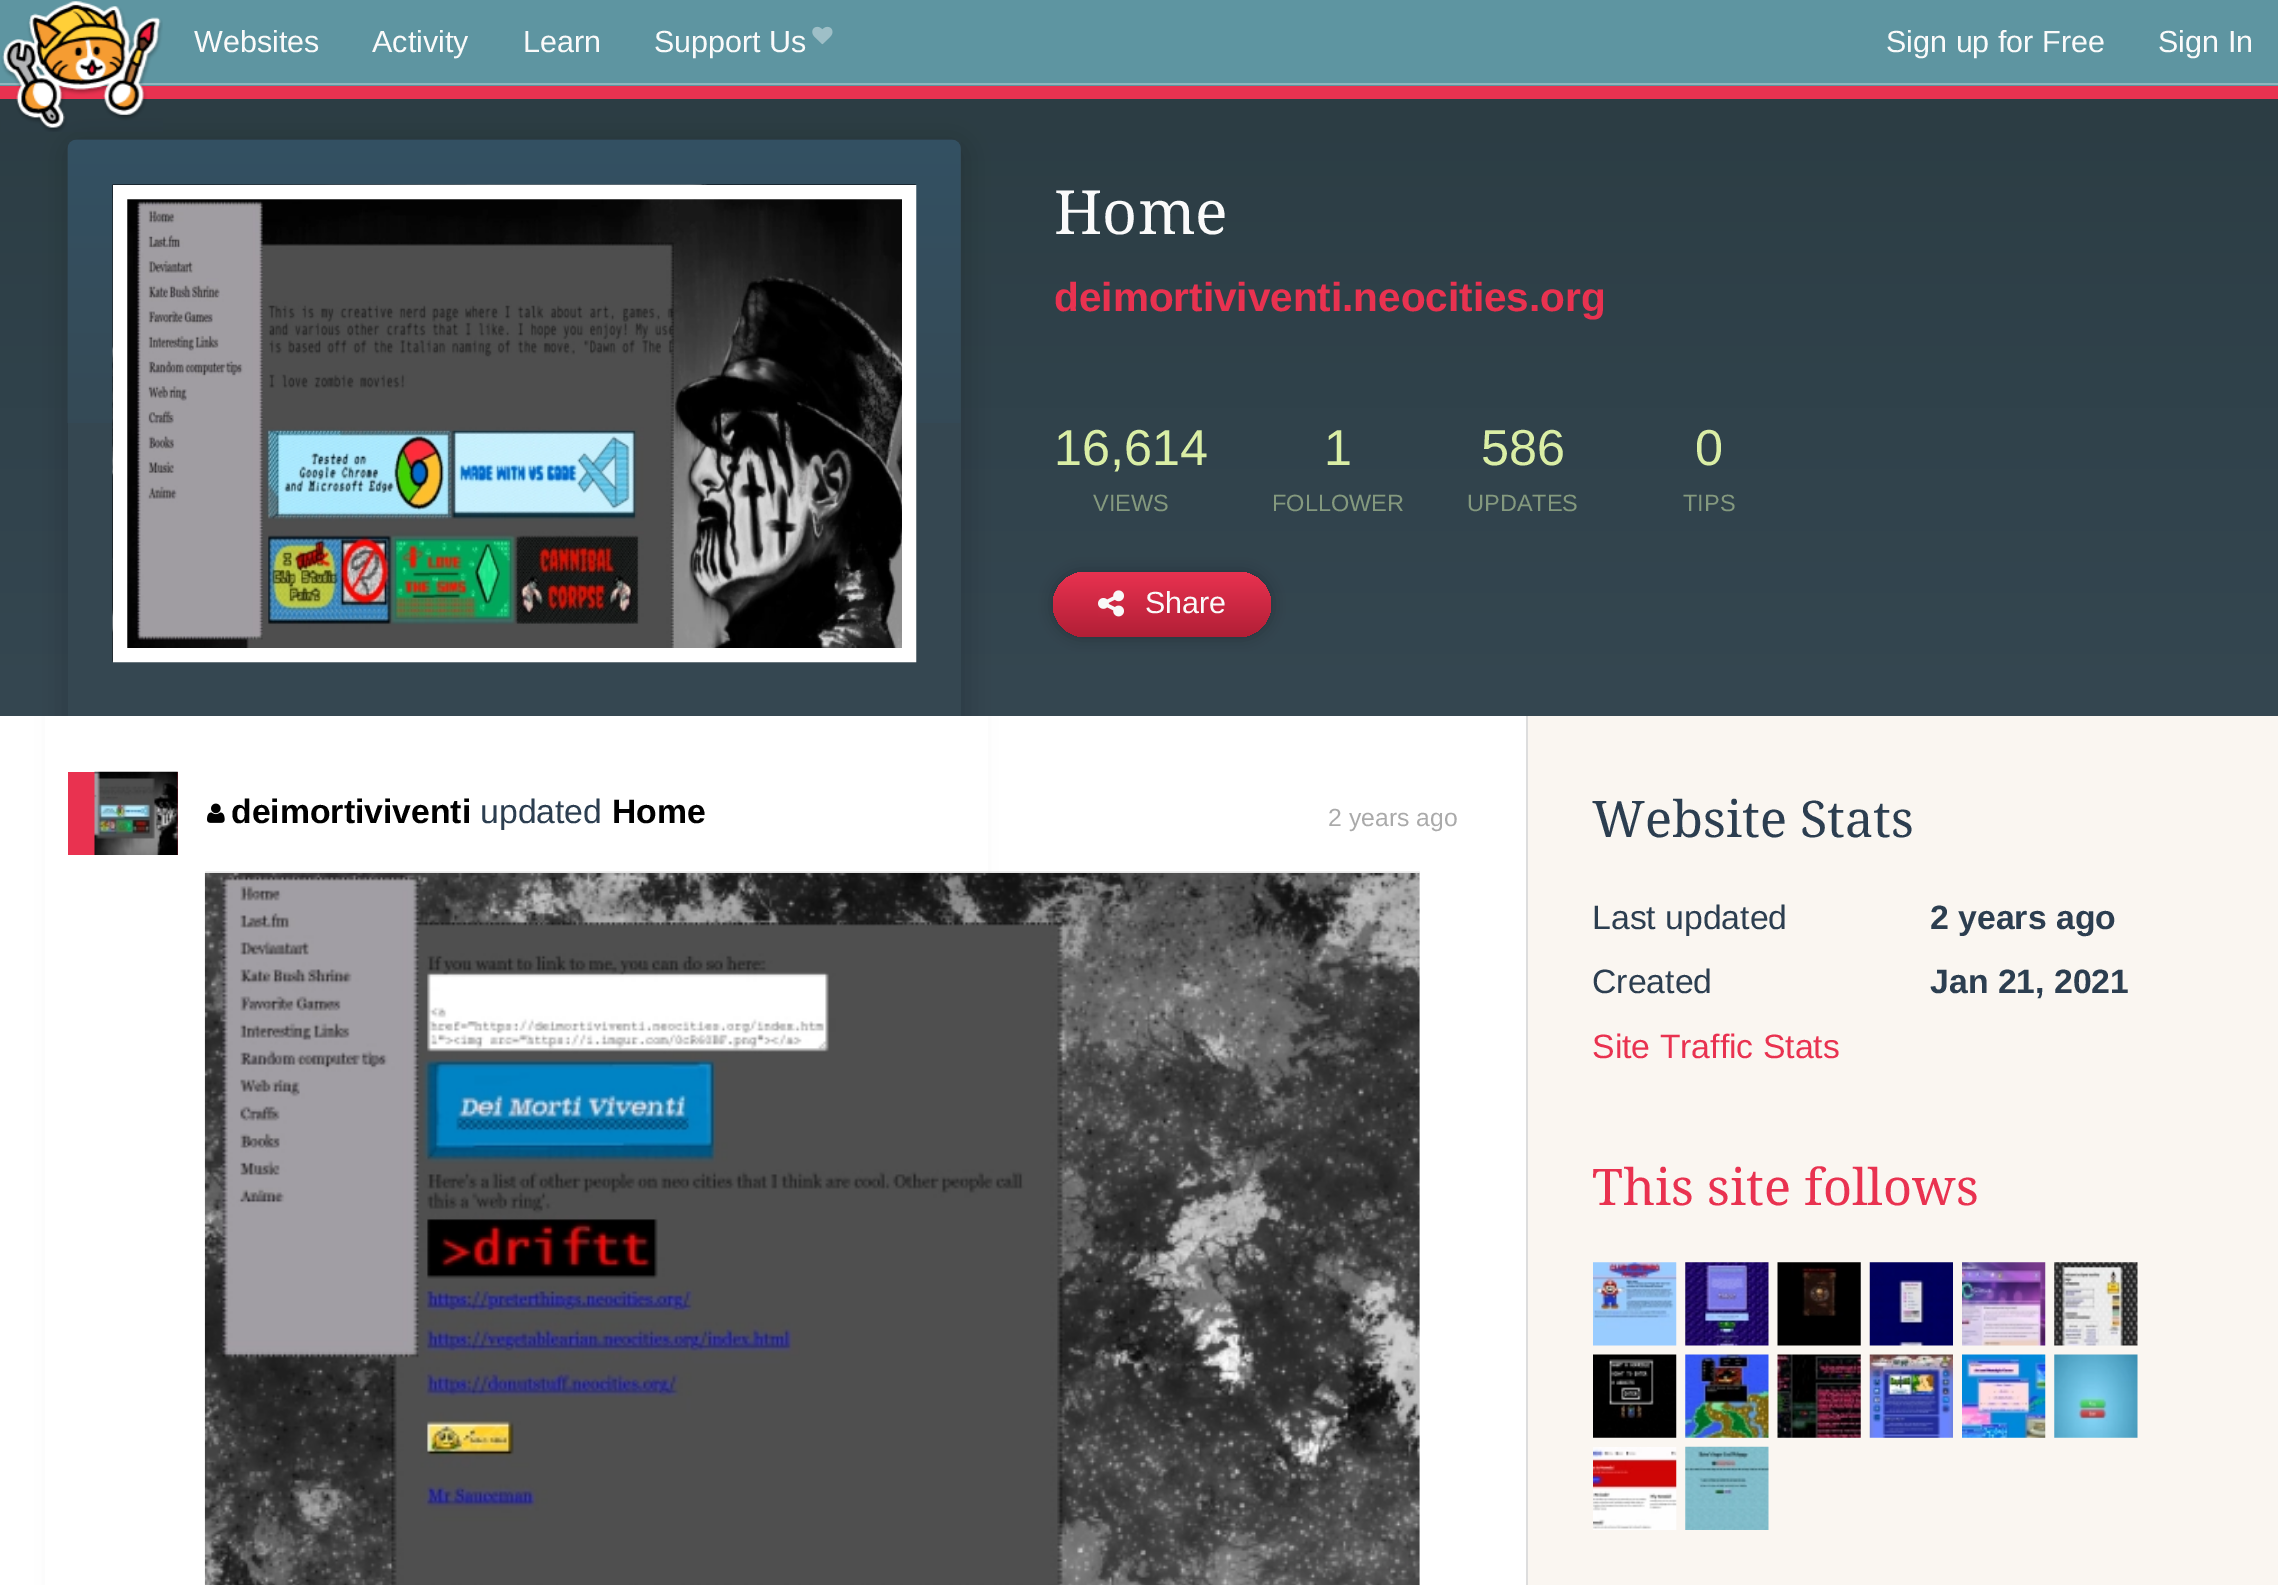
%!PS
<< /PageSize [2278 1585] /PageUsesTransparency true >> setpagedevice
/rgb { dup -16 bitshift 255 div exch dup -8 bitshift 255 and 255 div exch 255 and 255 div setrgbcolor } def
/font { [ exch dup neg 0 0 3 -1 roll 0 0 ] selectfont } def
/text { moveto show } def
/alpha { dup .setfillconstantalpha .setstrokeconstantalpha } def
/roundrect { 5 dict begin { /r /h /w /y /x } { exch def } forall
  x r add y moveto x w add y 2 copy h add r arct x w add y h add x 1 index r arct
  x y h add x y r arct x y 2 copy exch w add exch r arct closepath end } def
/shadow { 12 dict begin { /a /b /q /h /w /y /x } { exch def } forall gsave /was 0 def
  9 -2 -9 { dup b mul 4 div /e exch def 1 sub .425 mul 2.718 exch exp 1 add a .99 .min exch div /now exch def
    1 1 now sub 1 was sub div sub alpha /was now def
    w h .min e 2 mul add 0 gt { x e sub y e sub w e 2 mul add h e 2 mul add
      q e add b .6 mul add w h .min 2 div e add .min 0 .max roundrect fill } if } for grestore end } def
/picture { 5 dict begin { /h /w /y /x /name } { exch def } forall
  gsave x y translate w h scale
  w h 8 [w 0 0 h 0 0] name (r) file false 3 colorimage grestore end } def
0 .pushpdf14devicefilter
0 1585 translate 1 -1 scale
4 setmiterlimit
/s1 { /LiberationSans-Regular 30.5 font 16#FAFAFA rgb } def
/s2 { /DroidSerif-Regular 61 font 16#FAFAFA rgb } def
/s3 { /LiberationSans-Bold 40.5 font 16#E93250 rgb } def
/s4 { /LiberationSans-Regular 50.5 font 16#DAEEA5 rgb } def
/s5 { /LiberationSans-Regular 23.5 font 16#84997E rgb } def
/s6 { /LiberationSans-Bold 33.75 font 16#000000 rgb } def
/s7 { /LiberationSans-Regular 33.75 font 16#2C3E50 rgb } def
/s8 { /LiberationSans-Regular 24.75 font 16#AAAAAA rgb } def
/s9 { /DroidSerif-Regular 50.5 font 16#2C3E50 rgb } def
/s10 { /LiberationSans-Bold 33.75 font 16#2C3E50 rgb } def
/s11 { /LiberationSans-Regular 33.75 font 16#E93250 rgb } def
/s12 { /DroidSerif-Regular 50.5 font 16#E93250 rgb } def
16#FFFFFF rgb
0 0 2278 1585 rectfill
gsave 0 99 moveto 2278 99 lineto 2278 716 lineto 0 716 lineto closepath clip newpath
<< /ShadingType 2 /ColorSpace /DeviceRGB /Coords [1140 49 1140 716] /Extend [true true] /Function << /FunctionType 2 /Domain [0 1] /C0 [0.169 0.235 0.263] /C1 [0.208 0.278 0.318] /N 1 >> >> shfill grestore
16#000000 rgb
65 140 903 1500 14 13.5 0.15 shadow
16#E93250 rgb
0 86 2278 13 rectfill
16#5E95A1 rgb
0 0 2278 86 rectfill
16#92B4BD rgb
0 83 2278 2 rectfill
(pic1.raw) 1 1 162 131 picture
s1
(Websites) 194 52 text
(Activity) 372 52 text
(Learn) 523 52 text
(Support Us) 654 52 text
(pic2.raw) 812 26 21 19 picture
(Sign up for Free) 1886 52 text
(Sign In) 2158 52 text
16#354751 rgb
77 140 moveto 952 140 lineto 957 140 961 144 961 149 curveto 961 716 lineto 68 716 lineto 68 149 lineto 68 144 72 140 77 140 curveto closepath fill
(pic3.raw) 67 139 894 284 picture
(pic4.raw) 112 184 804 478 picture
16#FFFFFF rgb
14 setlinewidth
120 192 789 463 rectstroke
s2
(Home) 1054 234 text
s3
(deimortiviventi.neocities.org) 1054 311 text
s4
(16,614) 1054 465 text
s5
(VIEWS) 1093 511 text
s4
(1) 1324 465 text
s5
(FOLLOWER) 1272 511 text
s4
(586) 1481 465 text
s5
(UPDATES) 1467 511 text
s4
(0) 1695 465 text
s5
(TIPS) 1683 511 text
16#000000 rgb
1053 572 218 65 32.5 7 0.25 shadow
gsave 1053 572 218 65 32.5 roundrect clip newpath
<< /ShadingType 2 /ColorSpace /DeviceRGB /Coords [1162 572 1162 637] /Extend [true true] /Function << /FunctionType 2 /Domain [0 1] /C0 [0.914 0.196 0.314] /C1 [0.694 0.122 0.212] /N 1 >> >> shfill grestore
(pic5.raw) 1098 590 26 27 picture
s1
(Share) 1145 613 text
16#FAF6F1 rgb
1528 716 750 869 rectfill
16#DDDDDD rgb
1526 716 2 869 rectfill
16#FFFFFF rgb
45 716 943 869 rectfill
16#E93250 rgb
68 772 110 83 rectfill
(pic6.raw) 94 771 84 84 picture
(pic7.raw) 207 803 18 20 picture
s6
(deimortiviventi) 231 823 text
s7
(updated) 480 823 text
s6
(Home) 612 823 text
s8
(2 years ago) 1328 826 text
gsave
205 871 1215 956 rectclip
16#000000 rgb
205 875 1215 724 0 4.5 0.3 shadow
grestore
(pic8.raw) 204 873 1216 712 picture
s9
(Website Stats) 1592 837 text
s7
(Last updated) 1592 929 text
s10
(2 years ago) 1930 929 text
s7
(Created) 1592 993 text
s10
(Jan 21, 2021) 1930 993 text
s11
(Site Traffic Stats) 1592 1058 text
s12
(This site follows) 1592 1205 text
(pic9.raw) 1593 1262 84 84 picture
(pic10.raw) 1685 1262 84 84 picture
(pic11.raw) 1777 1262 84 84 picture
(pic12.raw) 1869 1262 84 84 picture
(pic13.raw) 1962 1262 84 84 picture
(pic14.raw) 2054 1262 84 84 picture
(pic15.raw) 1593 1354 84 84 picture
(pic16.raw) 1685 1354 84 84 picture
(pic17.raw) 1777 1354 84 84 picture
(pic18.raw) 1869 1354 84 84 picture
(pic19.raw) 1962 1354 84 84 picture
(pic20.raw) 2054 1354 84 84 picture
(pic21.raw) 1593 1447 84 83 picture
(pic22.raw) 1685 1446 84 84 picture
.poppdf14devicefilter showpage
